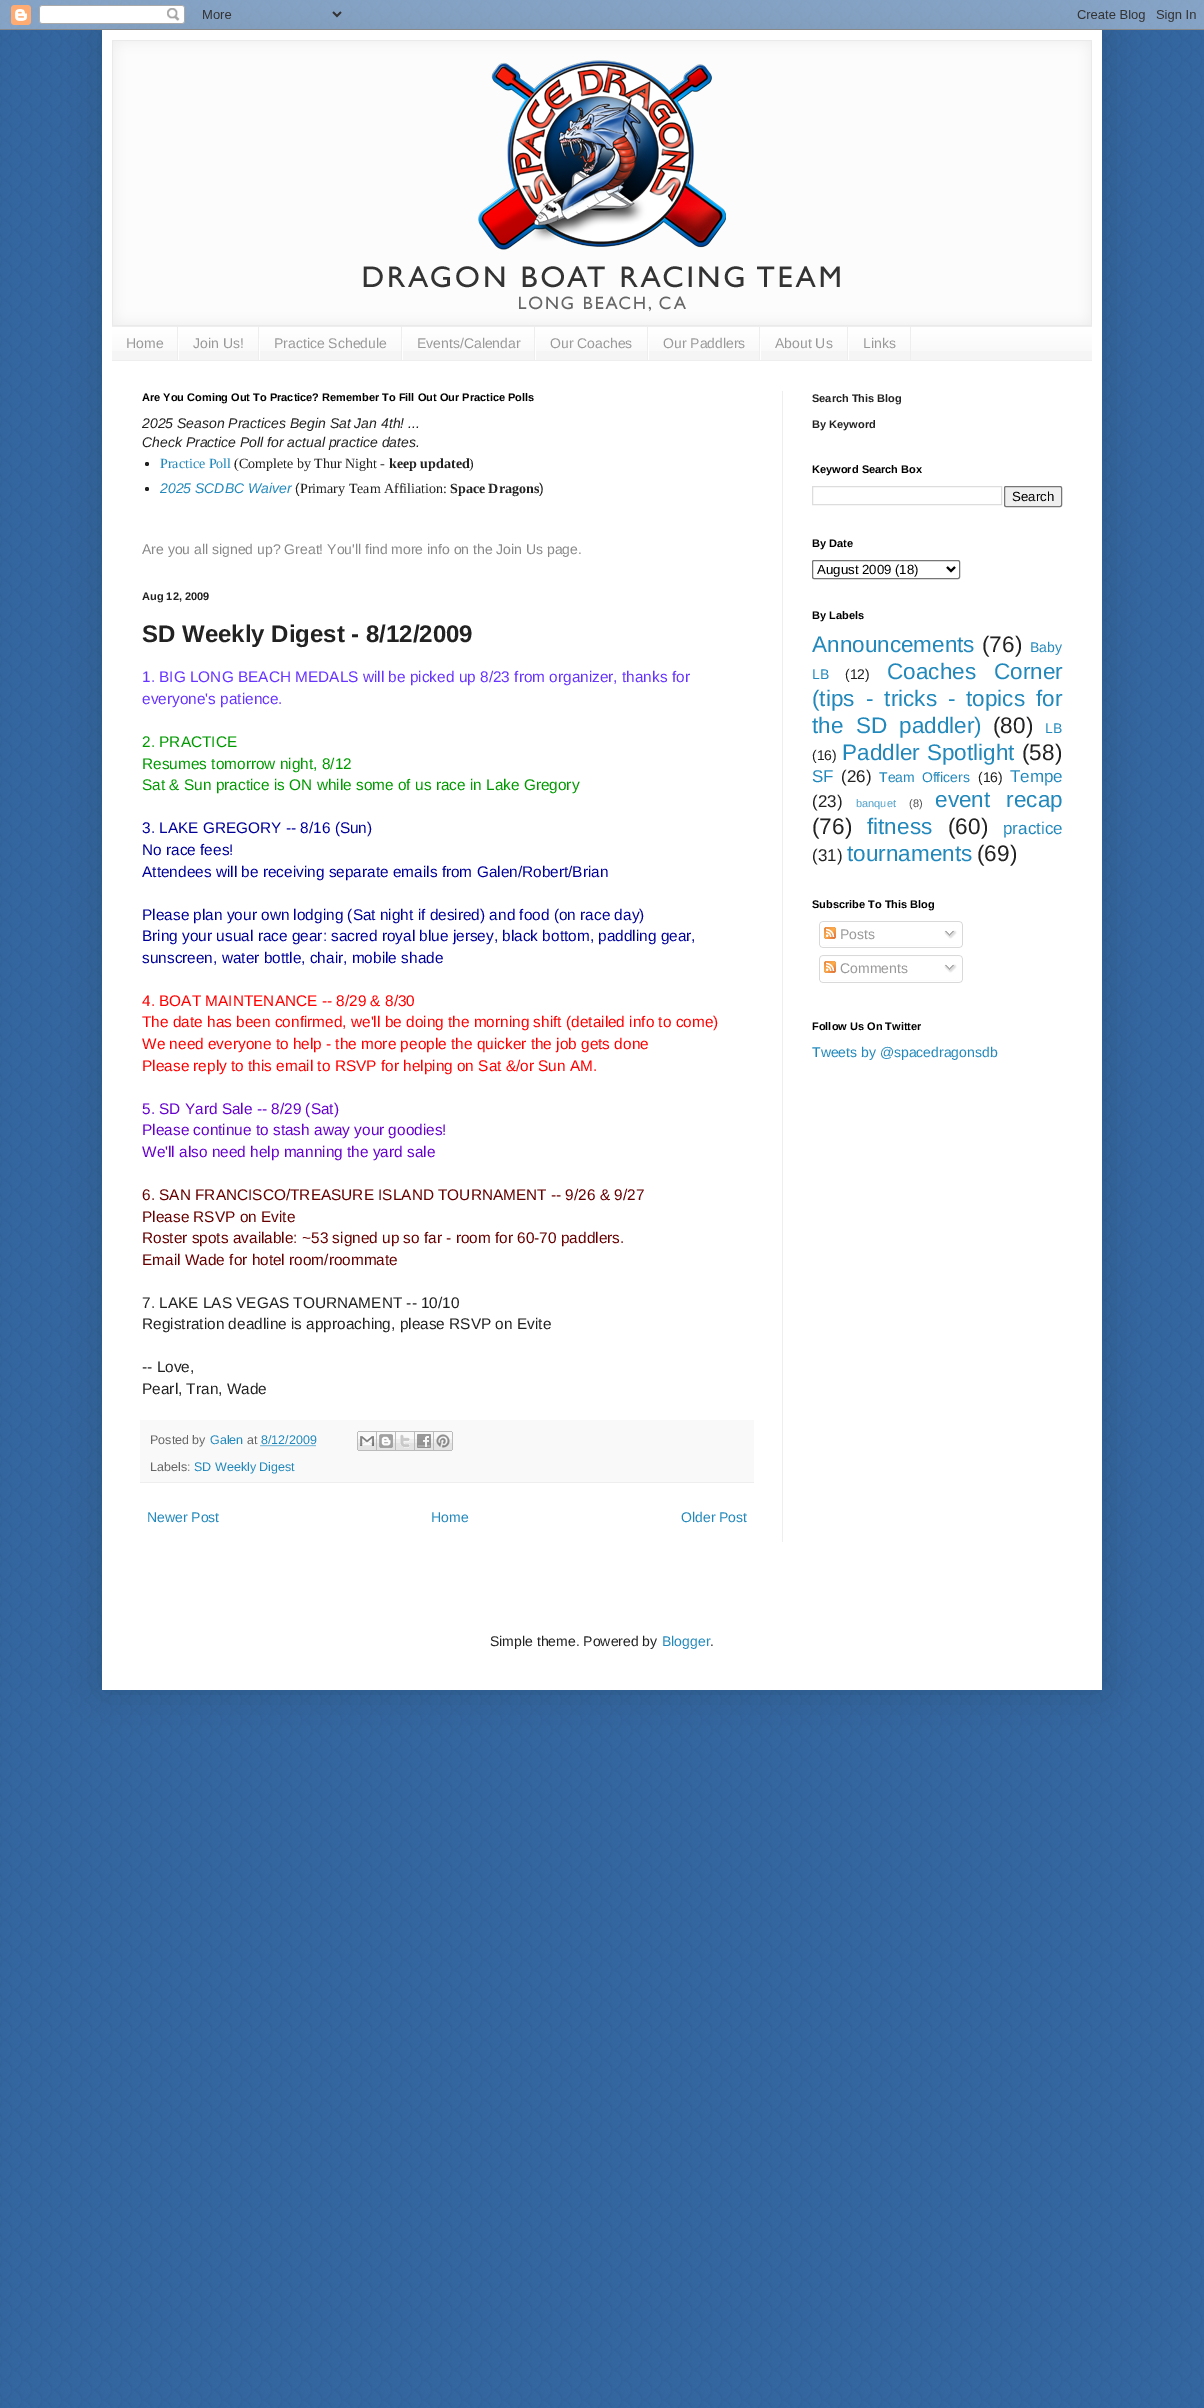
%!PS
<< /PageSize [1204 2408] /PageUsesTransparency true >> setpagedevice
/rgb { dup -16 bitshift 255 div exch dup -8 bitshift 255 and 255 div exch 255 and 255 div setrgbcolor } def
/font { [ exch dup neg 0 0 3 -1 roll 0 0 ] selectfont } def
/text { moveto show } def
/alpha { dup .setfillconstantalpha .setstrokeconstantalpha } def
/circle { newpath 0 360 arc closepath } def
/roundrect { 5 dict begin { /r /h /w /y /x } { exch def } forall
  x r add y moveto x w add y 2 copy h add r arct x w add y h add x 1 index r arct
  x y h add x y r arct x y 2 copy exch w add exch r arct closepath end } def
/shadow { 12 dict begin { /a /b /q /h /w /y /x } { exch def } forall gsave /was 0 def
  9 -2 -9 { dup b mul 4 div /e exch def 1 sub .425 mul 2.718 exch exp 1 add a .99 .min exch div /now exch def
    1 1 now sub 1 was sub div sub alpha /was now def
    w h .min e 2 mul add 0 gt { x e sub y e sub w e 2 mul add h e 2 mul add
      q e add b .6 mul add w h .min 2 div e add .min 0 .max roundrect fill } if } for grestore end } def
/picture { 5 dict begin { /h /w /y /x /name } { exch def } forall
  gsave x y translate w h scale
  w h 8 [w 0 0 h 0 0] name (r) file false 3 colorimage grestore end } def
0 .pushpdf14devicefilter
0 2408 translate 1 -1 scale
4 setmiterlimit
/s1 { /LiberationSans-Regular 14 font 16#999999 rgb } def
/s2 { /LiberationSans-Bold 11 font 16#000000 rgb } def
/s3 { /LiberationSans-Italic 14 font 16#222222 rgb } def
/s4 { /LiberationSerif-Regular 14 font 16#2288BB rgb } def
/s5 { /LiberationSerif-Regular 14 font 16#222222 rgb } def
/s6 { /LiberationSerif-Bold 14 font 16#222222 rgb } def
/s7 { /LiberationSans-Italic 14 font 16#2288BB rgb } def
/s8 { /LiberationSans-Regular 14 font 16#222222 rgb } def
/s9 { /LiberationSans-Regular 14 font 16#888888 rgb } def
/s10 { /LiberationSans-Bold 11 font 16#222222 rgb } def
/s11 { /LiberationSans-Bold 24 font 16#222222 rgb } def
/s12 { /LiberationSans-Regular 15.4 font 16#6633FF rgb } def
/s13 { /LiberationSans-Regular 15.4 font 16#009900 rgb } def
/s14 { /LiberationSans-Regular 15.4 font 16#000099 rgb } def
/s15 { /LiberationSans-Regular 15.4 font 16#FF0000 rgb } def
/s16 { /LiberationSans-Regular 15.4 font 16#6600CC rgb } def
/s17 { /LiberationSans-Regular 15.4 font 16#660000 rgb } def
/s18 { /LiberationSans-Regular 15.4 font 16#222222 rgb } def
/s19 { /LiberationSans-Regular 12.5 font 16#666666 rgb } def
/s20 { /LiberationSans-Regular 12.5 font 16#2288BB rgb } def
/s21 { /LiberationSans-Regular 14 font 16#2288BB rgb } def
/s22 { /LiberationSans-Regular 13.25 font 16#000000 rgb } def
/s23 { /LiberationSans-Regular 22.5 font 16#2288BB rgb } def
/s24 { /LiberationSans-Regular 22.5 font 16#222222 rgb } def
/s25 { /LiberationSans-Regular 17 font 16#2288BB rgb } def
/s26 { /LiberationSans-Regular 17 font 16#222222 rgb } def
/s27 { /LiberationSans-Regular 11 font 16#4EA0C9 rgb } def
/s28 { /LiberationSans-Regular 11 font 16#4E4E4E rgb } def
16#FFFFFF rgb
0 0 1204 2408 rectfill
(pic1.raw) 0 0 1204 2408 picture
16#000000 rgb
102 30 1000 1660 0 20 0.15 shadow
(pic2.raw) 0 0 1204 30 picture
16#FFFFFF rgb
102 30 1000 1660 rectfill
(pic3.raw) 112 40 980 286 picture
16#F5F5F5 rgb
112 328 980 32 rectfill
(pic4.raw) 112 327 980 24 picture
16#EEEEEE rgb
112 326 980 1 rectfill
112 360 980 1 rectfill
177 327 1 33 rectfill
s1
(Home) 126 348 text
16#EEEEEE rgb
258 327 1 33 rectfill
16#FFFFFF rgb
178 338 1 22 rectfill
s1
(Join Us!) 193 348 text
16#EEEEEE rgb
401 327 1 33 rectfill
16#FFFFFF rgb
259 338 1 22 rectfill
s1
(Practice Schedule) 274 348 text
16#EEEEEE rgb
534 327 1 33 rectfill
16#FFFFFF rgb
402 338 1 22 rectfill
s1
(Events/Calendar) 417 348 text
16#EEEEEE rgb
647 327 1 33 rectfill
16#FFFFFF rgb
535 338 1 22 rectfill
s1
(Our Coaches) 550 348 text
16#EEEEEE rgb
759 327 1 33 rectfill
16#FFFFFF rgb
648 338 1 22 rectfill
s1
(Our Paddlers) 663 348 text
16#EEEEEE rgb
847 327 1 33 rectfill
16#FFFFFF rgb
760 338 1 22 rectfill
s1
(About Us) 775 348 text
16#EEEEEE rgb
910 327 1 33 rectfill
16#FFFFFF rgb
848 338 1 22 rectfill
s1
(Links) 863 348 text
16#EEEEEE rgb
782 391 1 1151 rectfill
s2
(Are You Coming Out To Practice? Remember To Fill Out Our Practice Polls) 142 401 text
s3
(2025 Season Practices Begin Sat Jan 4th! ...) 142 428 text
(Check Practice Poll for actual practice dates.) 142 447 text
147 464 2 circle fill
s4
(Practice Poll) 160 468 text
s5
(\(Complete by Thur Night -) 234 468 text
s6
(keep updated) 389 468 text
s5
(\)) 469 468 text
147 489 2 circle fill
s7
(2025 SCDBC Waiver) 160 493 text
s8
(\() 295 493 text
s5
(Primary Team Affiliation:) 300 493 text
s6
(Space Dragons) 450 493 text
s8
(\)) 539 493 text
s9
(Are you all signed up? Great! You'll find more info on the Join Us page.) 142 554 text
s10
(Aug 12, 2009) 142 600 text
s11
(SD Weekly Digest - 8/12/2009) 142 642 text
s12
(1. BIG LONG BEACH MEDALS will be picked up 8/23 from organizer, thanks for) 142 682 text
(everyone's patience.) 142 704 text
s13
(2. PRACTICE) 142 747 text
(Resumes tomorrow night, 8/12) 142 769 text
(Sat & Sun practice is ON while some of us race in Lake Gregory) 142 790 text
s14
(3. LAKE GREGORY -- 8/16 \(Sun\)) 142 833 text
(No race fees!) 142 855 text
(Attendees will be receiving separate emails from Galen/Robert/Brian) 142 877 text
(Please plan your own lodging \(Sat night if desired\) and food \(on race day\)) 142 920 text
(Bring your usual race gear: sacred royal blue jersey, black bottom, paddling gear,) 142 941 text
(sunscreen, water bottle, chair, mobile shade) 142 963 text
s15
(4. BOAT MAINTENANCE -- 8/29 & 8/30) 142 1006 text
(The date has been confirmed, we'll be doing the morning shift \(detailed info to come\)) 142 1027 text
(We need everyone to help - the more people the quicker the job gets done) 142 1049 text
(Please reply to this email to RSVP for helping on Sat &/or Sun AM.) 142 1071 text
s16
(5. SD Yard Sale -- 8/29 \(Sat\)) 142 1114 text
(Please continue to stash away your goodies!) 142 1135 text
(We'll also need help manning the yard sale) 142 1157 text
s17
(6. SAN FRANCISCO/TREASURE ISLAND TOURNAMENT -- 9/26 & 9/27) 142 1200 text
(Please RSVP on Evite) 142 1222 text
(Roster spots available: ~53 signed up so far - room for 60-70 paddlers.) 142 1243 text
(Email Wade for hotel room/roommate) 142 1265 text
s18
(7. LAKE LAS VEGAS TOURNAMENT -- 10/10) 142 1308 text
(Registration deadline is approaching, please RSVP on Evite) 142 1329 text
(-- Love,) 142 1372 text
(Pearl, Tran, Wade) 142 1394 text
16#F9F9F9 rgb
140 1420 614 62 rectfill
16#EEEEEE rgb
140 1482 614 1 rectfill
s19
(Posted by) 150 1444 text
s20
(Galen) 210 1444 text
s19
(at) 247 1444 text
s20
(8/12/2009) 261 1444 text
[1 1] 0 setdash
260.5 1445.5 moveto 316.5 1445.5 lineto stroke
(pic5.raw) 357 1431 20 20 picture
(pic6.raw) 377 1431 19 20 picture
(pic7.raw) 396 1431 19 20 picture
(pic8.raw) 415 1431 19 20 picture
(pic9.raw) 434 1431 19 20 picture
s19
(Labels:) 150 1471 text
s20
(SD Weekly Digest) 194 1471 text
s21
(Newer Post) 147 1522 text
(Home) 431 1522 text
(Older Post) 681 1522 text
s10
(Search This Blog) 812 402 text
(By Keyword) 812 428 text
s2
(Keyword Search Box) 812 473 text
16#DDDDDD rgb
[] 0 setdash
812.5 486.5 189 18 rectstroke
16#EFEFEF rgb
1004.5 486.5 57 20 1.5 roundrect gsave fill grestore
16#767676 rgb
stroke
s22
(Search) 1012 501 text
s2
(By Date) 812 547 text
16#767676 rgb
812.5 560.5 147 18 1.5 roundrect stroke
16#000000 rgb
2 setlinewidth
947 567 moveto 951 571 lineto 955 567 lineto stroke
s22
(August 2009 \(18\)) 817 574 text
s2
(By Labels) 812 619 text
s23
(Announcements) 812 652 text
s24
(\(76\)) 982 652 text
s21
(Baby) 1030 652 text
(LB) 812 679 text
s8
(\(12\)) 845 679 text
/LiberationSans-Regular 22.5 font
16#2288BB rgb
887 679 moveto 12 0 32 (Coaches Corner) widthshow
812 706 moveto 5 0 32 (\(tips - tricks -) widthshow
966 706 moveto 5 0 32 (topics for) widthshow
812 733 moveto 6 0 32 (the SD paddler\)) widthshow
s24
(\(80\)) 993 733 text
s21
(LB) 1045 733 text
s8
(\(16\)) 812 760 text
/LiberationSans-Regular 22.5 font
16#2288BB rgb
842 760 moveto 1 0 32 (Paddler Spotlight) widthshow
s24
(\(58\)) 1022 760 text
s25
(SF) 812 782 text
s26
(\(26\)) 841 782 text
/LiberationSans-Regular 14 font
16#2288BB rgb
879 782 moveto 3 0 32 (Team Officers) widthshow
s8
(\(16\)) 978 782 text
s25
(Tempe) 1010 782 text
s26
(\(23\)) 812 807 text
s27
(banquet) 856 807 text
s28
(\(8\)) 909 807 text
/LiberationSans-Regular 22.5 font
16#2288BB rgb
935 807 moveto 10 0 32 (event recap) widthshow
s24
(\(76\)) 812 834 text
s23
(fitness) 867 834 text
s24
(\(60\)) 948 834 text
s25
(practice) 1003 834 text
s26
(\(31\)) 812 861 text
s23
(tournaments) 847 861 text
s24
(\(69\)) 977 861 text
s2
(Subscribe To This Blog) 812 908 text
(pic10.raw) 819 921 144 24 picture
(pic11.raw) 824 927 12 12 picture
s1
(Posts) 840 939 text
(pic12.raw) 944 930 13 9 picture
(pic13.raw) 819 945 144 3 picture
(pic14.raw) 819 955 144 25 picture
(pic11.raw) 824 961 12 12 picture
(Comments) 840 973 text
(pic12.raw) 944 964 13 9 picture
(pic13.raw) 819 980 144 3 picture
s2
(Follow Us On Twitter) 812 1030 text
s21
(Tweets by @spacedragonsdb) 812 1057 text
s8
(Simple theme. Powered by) 490 1646 text
s21
(Blogger) 662 1646 text
s8
(.) 710 1646 text
.poppdf14devicefilter showpage
